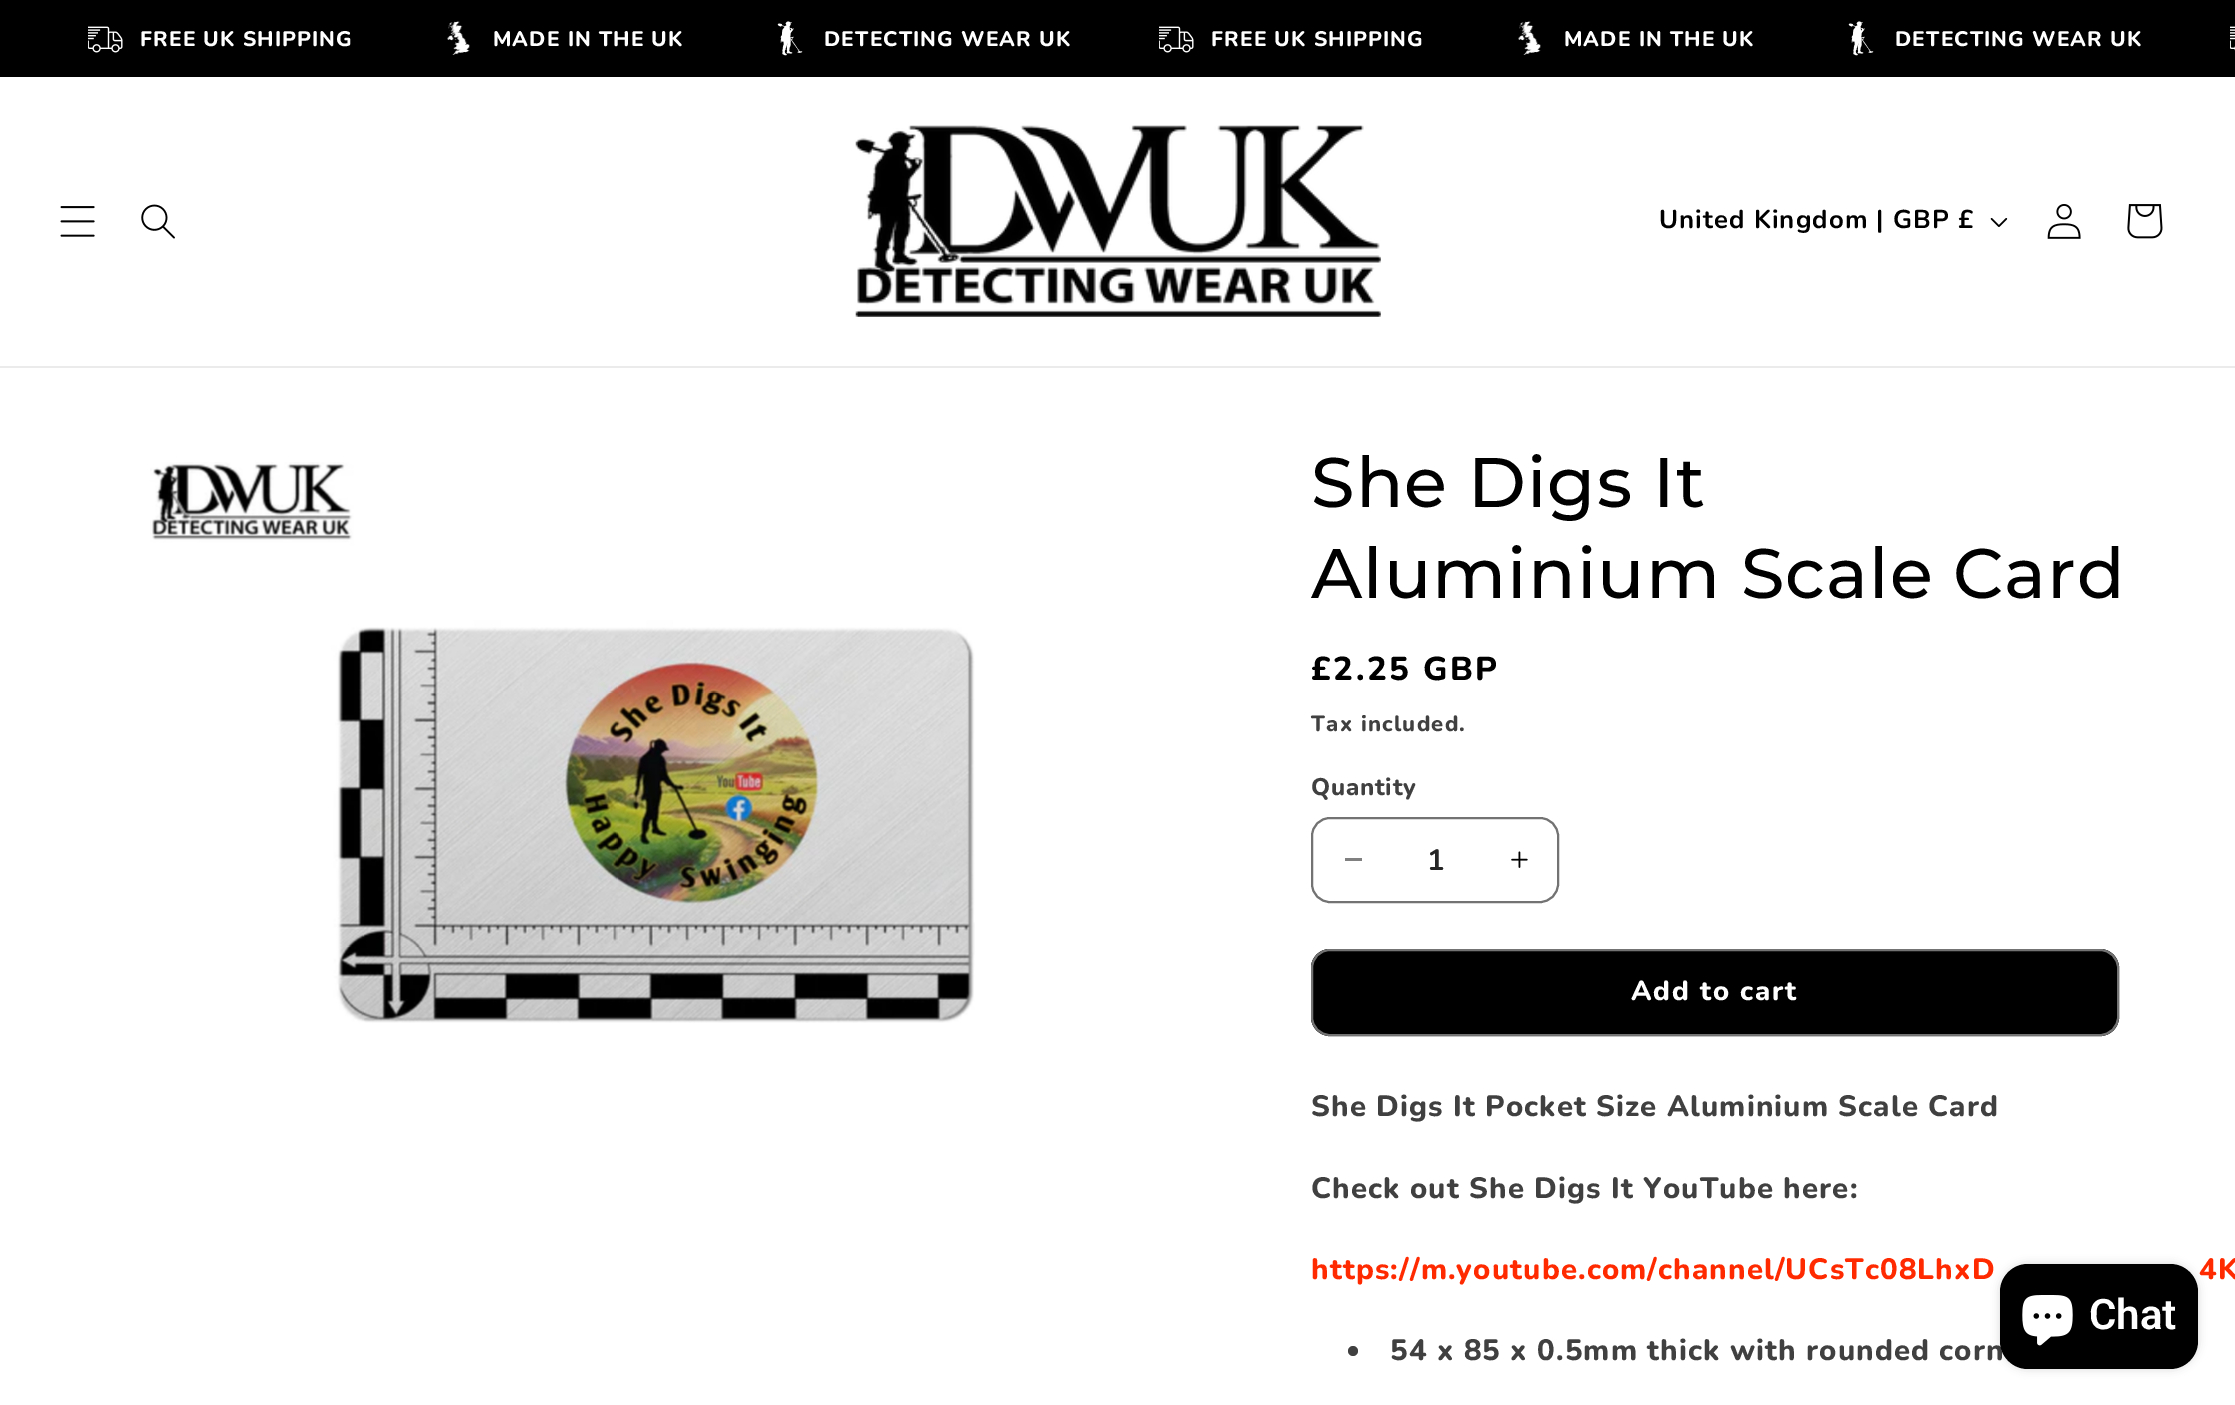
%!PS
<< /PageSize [2235 1405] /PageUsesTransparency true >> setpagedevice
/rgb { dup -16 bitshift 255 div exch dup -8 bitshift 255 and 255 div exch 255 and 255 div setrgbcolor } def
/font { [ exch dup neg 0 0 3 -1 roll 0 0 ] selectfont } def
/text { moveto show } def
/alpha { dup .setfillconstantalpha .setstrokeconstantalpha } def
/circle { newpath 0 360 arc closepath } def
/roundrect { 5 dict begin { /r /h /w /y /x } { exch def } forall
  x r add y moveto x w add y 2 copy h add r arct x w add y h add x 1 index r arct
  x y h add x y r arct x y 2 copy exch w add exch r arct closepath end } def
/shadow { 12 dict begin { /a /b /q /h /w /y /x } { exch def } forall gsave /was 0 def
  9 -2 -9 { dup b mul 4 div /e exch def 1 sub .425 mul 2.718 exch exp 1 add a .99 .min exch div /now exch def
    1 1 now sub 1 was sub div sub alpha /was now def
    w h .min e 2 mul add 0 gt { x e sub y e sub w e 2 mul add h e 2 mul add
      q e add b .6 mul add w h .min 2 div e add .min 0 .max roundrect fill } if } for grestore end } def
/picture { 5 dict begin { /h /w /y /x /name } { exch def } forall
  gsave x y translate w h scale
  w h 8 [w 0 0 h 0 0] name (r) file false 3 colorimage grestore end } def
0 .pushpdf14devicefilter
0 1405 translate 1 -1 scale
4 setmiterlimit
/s1 { /Nunito-Bold 29.4 font 16#262626 rgb } def
/s2 { /Roboto-SemiBold 42 font 16#FFFFFF rgb } def
16#FFFFFF rgb
0 0 2235 1405 rectfill
16#EBEBEB rgb
0 366 2235 2 rectfill
16#000000 rgb
0 0 2235 77 rectfill
(pic1.raw) 88 26 35 27 picture
/Nunito-ExtraBold 21 font
16#FFFFFF rgb
140 46 moveto 1.1 0 (FREE UK SHIPPING) ashow
(pic2.raw) 447 21 23 34 picture
493 46 moveto 1.1 0 (MADE IN THE UK) ashow
(pic3.raw) 777 21 26 35 picture
824 46 moveto 1.1 0 (DETECTING WEAR UK) ashow
(pic1.raw) 1159 26 35 27 picture
1211 46 moveto 1.1 0 (FREE UK SHIPPING) ashow
(pic2.raw) 1518 21 23 34 picture
1564 46 moveto 1.1 0 (MADE IN THE UK) ashow
(pic3.raw) 1848 21 26 35 picture
1895 46 moveto 1.1 0 (DETECTING WEAR UK) ashow
(pic4.raw) 2230 26 5 25 picture
(pic5.raw) 60 206 35 31 picture
(pic6.raw) 141 204 34 35 picture
(pic7.raw) 855 125 526 192 picture
/Nunito-Bold 25.75 font
16#000000 rgb
1659 228 moveto 1.1 0 (United Kingdom | GBP £) ashow
(pic8.raw) 1990 218 18 9 picture
(pic9.raw) 2047 204 34 35 picture
(pic10.raw) 2127 204 36 35 picture
(pic11.raw) 150 462 825 561 picture
/Montserrat-Medium 70 font
1311 507 moveto 1.05 0 (She Digs It) ashow
1311 598 moveto 1.05 0 (Aluminium Scale Card) ashow
/Nunito-ExtraBold 33 font
1311 680 moveto 2.5 0 (£2.25 GBP) ashow
/Nunito-ExtraBold 22 font
16#404040 rgb
1311 731 moveto 1.25 0 (Tax included.) ashow
/Nunito-ExtraBold 24 font
1311 795 moveto 0.75 0 (Quantity) ashow
16#808080 rgb
1345 858 17 3 rectfill
(pic12.raw) 1511 851 17 17 picture
16#737373 rgb
2 setlinewidth
1312 818 246 84 18 roundrect stroke
s1
(1) 1427 870 text
16#000000 rgb
1311 949 808 87 19 roundrect fill
1312 950 806 85 18 roundrect stroke
0.45 alpha
16#FFFFFF rgb
1312 950 806 85 18 roundrect stroke
/Nunito-ExtraBold 27.5 font
1 alpha
1631 1000 moveto 1.75 0 (Add to cart) ashow
/Nunito-ExtraBold 29.4 font
16#404040 rgb
1311 1116 moveto 1.1 0 (She Digs It Pocket Size Aluminium Scale Card) ashow
1311 1198 moveto 1.1 0 (Check out She Digs It YouTube here:) ashow
16#FF2A00 rgb
1311 1279 moveto 1.1 0 (https://m.youtube.com/channel/UCsTc08LhxD) ashow
2199 1279 moveto 1.1 0 (4K) ashow
16#404040 rgb
1353 1351 5 circle fill
1390 1360 moveto 1.1 0 (54 x 85 x 0.5mm thick with rounded corn) ashow
16#000000 rgb
2000 1264 198 105 28 4.5 0.15 shadow
2000 1264 198 105 28 roundrect fill
(pic13.raw) 2022 1295 51 51 picture
s2
(Chat) 2089 1329 text
.poppdf14devicefilter showpage
